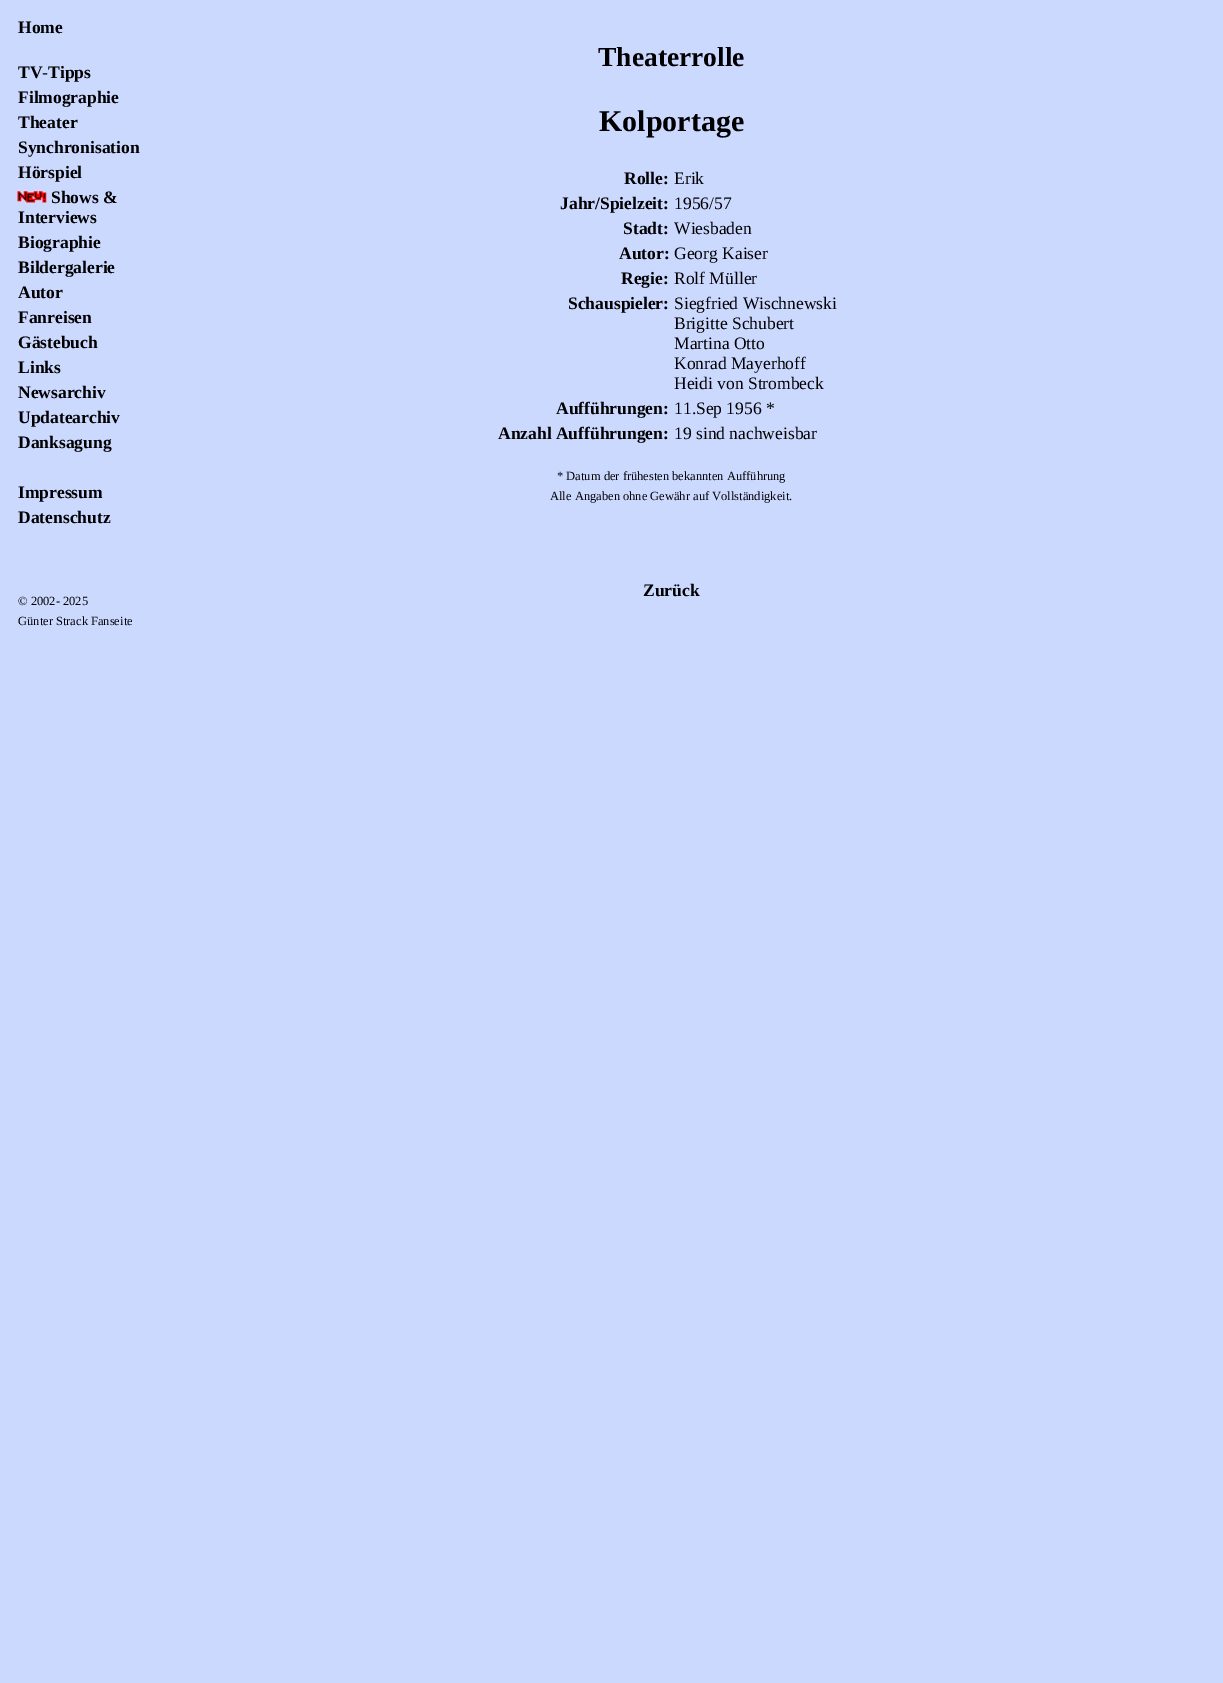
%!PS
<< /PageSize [1223 1683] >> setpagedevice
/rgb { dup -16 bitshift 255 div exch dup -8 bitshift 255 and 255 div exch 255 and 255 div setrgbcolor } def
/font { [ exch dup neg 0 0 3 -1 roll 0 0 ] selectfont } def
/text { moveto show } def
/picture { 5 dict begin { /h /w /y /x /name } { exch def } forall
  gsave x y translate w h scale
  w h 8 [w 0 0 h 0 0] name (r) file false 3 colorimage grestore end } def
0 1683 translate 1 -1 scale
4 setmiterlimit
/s1 { /LiberationSerif-Bold 17.5 font 16#000000 rgb } def
/s2 { /LiberationSerif-Regular 12.5 font 16#000000 rgb } def
/s3 { /LiberationSerif-Bold 27.5 font 16#000000 rgb } def
/s4 { /LiberationSerif-Bold 30 font 16#000000 rgb } def
/s5 { /LiberationSerif-Regular 17.5 font 16#000000 rgb } def
16#CCD9FF rgb
0 0 1223 1683 rectfill
s1
(Home) 18 33 text
(TV-Tipps) 18 78 text
(Filmographie) 18 103 text
(Theater) 18 128 text
(Synchronisation) 18 153 text
(Hörspiel) 18 178 text
(pic1.raw) 17 191 30 12 picture
(Shows &) 51 203 text
(Interviews) 18 223 text
(Biographie) 18 248 text
(Bildergalerie) 18 273 text
(Autor) 18 298 text
(Fanreisen) 18 323 text
(Gästebuch) 18 348 text
(Links) 18 373 text
(Newsarchiv) 18 398 text
(Updatearchiv) 18 423 text
(Danksagung) 18 448 text
(Impressum) 18 498 text
(Datenschutz) 18 523 text
s2
(© 2002- 2025) 18 605 text
(Günter Strack Fanseite) 18 625 text
s3
(Theaterrolle) 598 66 text
s4
(Kolportage) 599 131 text
s1
(Rolle:) 624 184 text
s5
(Erik) 674 184 text
s1
(Jahr/Spielzeit:) 560 209 text
s5
(1956/57) 674 209 text
s1
(Stadt:) 623 234 text
s5
(Wiesbaden) 674 234 text
s1
(Autor:) 619 259 text
s5
(Georg Kaiser) 674 259 text
s1
(Regie:) 621 284 text
s5
(Rolf Müller) 674 284 text
s1
(Schauspieler:) 568 309 text
s5
(Siegfried Wischnewski) 674 309 text
(Brigitte Schubert) 674 329 text
(Martina Otto) 674 349 text
(Konrad Mayerhoff) 674 369 text
(Heidi von Strombeck) 674 389 text
s1
(Aufführungen:) 556 414 text
s5
(11.Sep 1956 *) 674 414 text
s1
(Anzahl Aufführungen:) 498 439 text
s5
(19 sind nachweisbar) 674 439 text
s2
(* Datum der frühesten bekannten Aufführung) 557 480 text
(Alle Angaben ohne Gewähr auf Vollständigkeit.) 550 500 text
s1
(Zurück) 643 596 text
showpage
